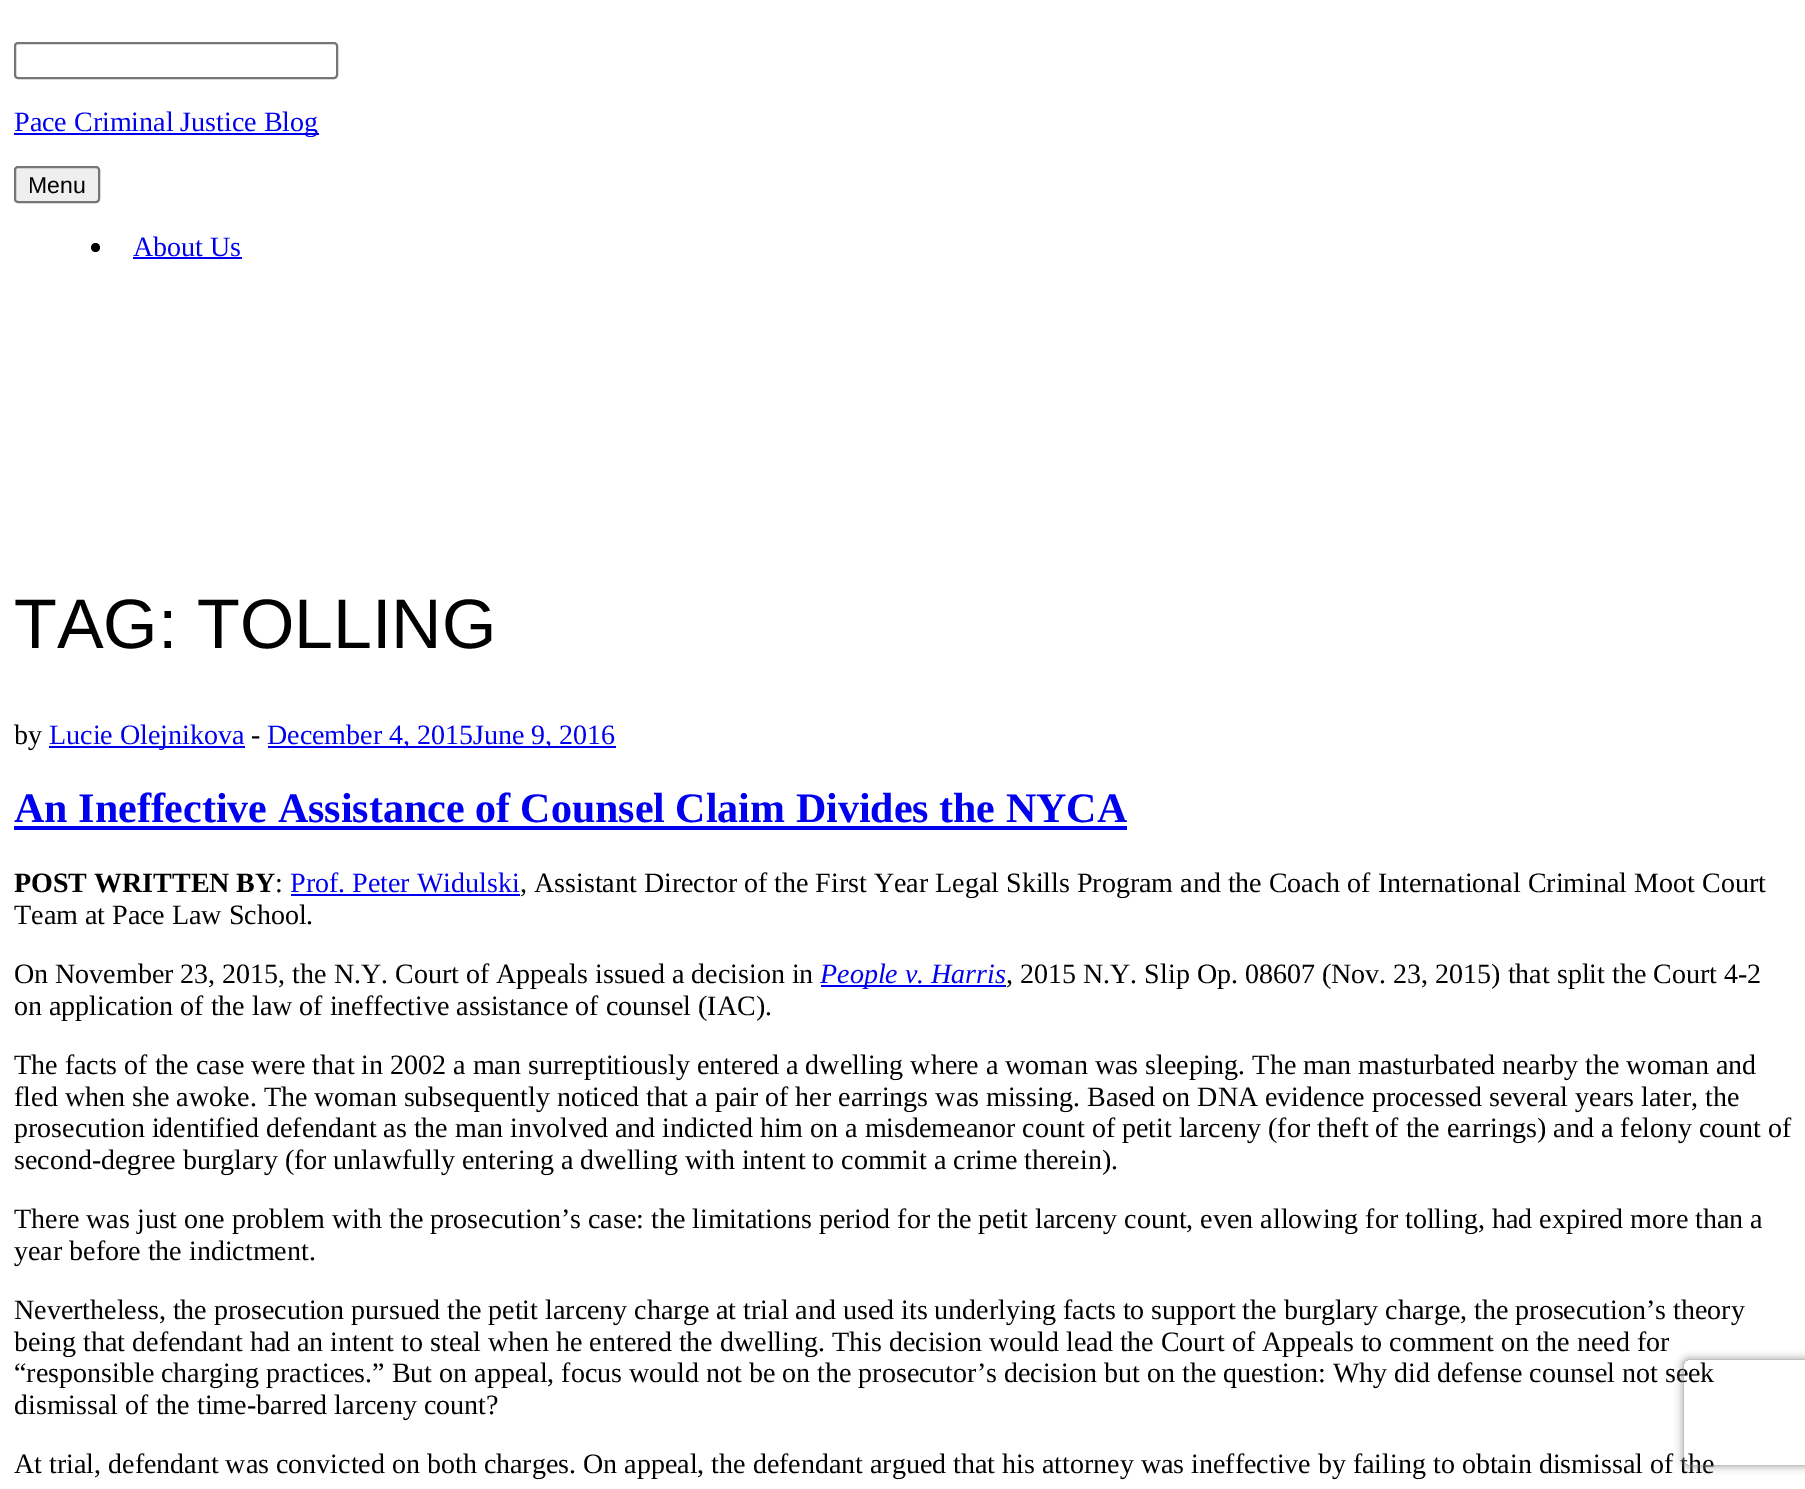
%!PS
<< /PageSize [1805 1489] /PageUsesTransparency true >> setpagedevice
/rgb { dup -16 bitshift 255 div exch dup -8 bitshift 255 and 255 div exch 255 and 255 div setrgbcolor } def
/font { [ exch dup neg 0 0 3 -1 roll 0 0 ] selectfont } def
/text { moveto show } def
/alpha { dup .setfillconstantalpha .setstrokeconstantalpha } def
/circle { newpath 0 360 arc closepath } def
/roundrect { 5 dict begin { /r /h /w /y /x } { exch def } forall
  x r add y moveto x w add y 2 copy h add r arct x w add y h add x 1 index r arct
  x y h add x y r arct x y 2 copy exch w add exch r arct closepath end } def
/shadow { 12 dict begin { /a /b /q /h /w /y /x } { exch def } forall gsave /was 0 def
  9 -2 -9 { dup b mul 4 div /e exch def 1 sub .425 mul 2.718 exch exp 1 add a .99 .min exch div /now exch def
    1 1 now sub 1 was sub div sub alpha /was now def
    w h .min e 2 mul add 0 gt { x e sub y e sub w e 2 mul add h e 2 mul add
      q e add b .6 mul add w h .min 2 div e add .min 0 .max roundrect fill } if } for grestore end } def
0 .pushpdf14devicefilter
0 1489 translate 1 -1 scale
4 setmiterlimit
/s1 { /LiberationSerif-Regular 28 font 16#0000EE rgb } def
/s2 { /LiberationSans-Regular 23 font 16#000000 rgb } def
/s3 { /LiberationSans-Regular 70 font 16#000000 rgb } def
/s4 { /LiberationSerif-Regular 28 font 16#000000 rgb } def
/s5 { /LiberationSerif-Bold 42 font 16#0000EE rgb } def
/s6 { /LiberationSerif-Bold 28 font 16#000000 rgb } def
/s7 { /LiberationSerif-Italic 28 font 16#0000EE rgb } def
/s8 { /LiberationSerif-Italic 28 font 16#000000 rgb } def
16#FFFFFF rgb
0 0 1805 1489 rectfill
16#767676 rgb
2 setlinewidth
15 43 322 35 3 roundrect stroke
16#0000EE rgb
14 133 305 2 rectfill
s1
(Pace Criminal Justice Blog) 14 131 text
16#EFEFEF rgb
15 167 84 35 3 roundrect gsave fill grestore
16#767676 rgb
stroke
s2
(Menu) 28 193 text
95.5 247.5 4.5 circle fill
s1
(About Us) 133 256 text
133 257 109 2 rectfill
s3
(TAG: TOLLING) 14 648 text
s4
(by) 14 744 text
16#0000EE rgb
49 746 196 2 rectfill
(Lucie Olejnikova) 49 744 text
s4
(-) 251 744 text
16#0000EE rgb
268 746 348 2 rectfill
(December 4, 2015June 9, 2016) 267 744 text
s5
(An Ineffective Assistance of Counsel Claim Divides the NYCA) 14 822 text
14 826 1113 4 rectfill
s6
(POST WRITTEN BY) 14 892 text
s4
(:) 275 892 text
s1
(Prof. Peter Widulski) 290 892 text
291 894 229 2 rectfill
s4
(, Assistant Director of the First Year Legal Skills Program and the Coach of International Criminal Moot Court) 520 892 text
(Team at Pace Law School.) 14 924 text
(On November 23, 2015, the N.Y. Court of Appeals issued a decision in) 14 983 text
16#0000EE rgb
821 985 185 2 rectfill
s7
(People v. Harris) 820 983 text
s8
(,) 1006 983 text
s4
(2015 N.Y. Slip Op. 08607 \(Nov. 23, 2015\) that split the Court 4-2) 1020 983 text
(on application of the law of ineffective assistance of counsel \(IAC\).) 14 1015 text
(The facts of the case were that in 2002 a man surreptitiously entered a dwelling where a woman was sleeping. The man masturbated nearby the woman and) 14 1074 text
(fled when she awoke. The woman subsequently noticed that a pair of her earrings was missing. Based on DNA evidence processed several years later, the) 14 1106 text
(prosecution identified defendant as the man involved and indicted him on a misdemeanor count of petit larceny \(for theft of the earrings\) and a felony count of) 14 1137 text
(second-degree burglary \(for unlawfully entering a dwelling with intent to commit a crime therein\).) 14 1169 text
(There was just one problem with the prosecution’s case: the limitations period for the petit larceny count, even allowing for tolling, had expired more than a) 14 1228 text
(year before the indictment.) 14 1260 text
(Nevertheless, the prosecution pursued the petit larceny charge at trial and used its underlying facts to support the burglary charge, the prosecution’s theory) 14 1319 text
(being that defendant had an intent to steal when he entered the dwelling. This decision would lead the Court of Appeals to comment on the need for) 14 1351 text
(“responsible charging practices.” But on appeal, focus would not be on the prosecutor’s decision but on the question: Why did defense counsel not seek) 14 1382 text
(dismissal of the time-barred larceny count?) 14 1414 text
(At trial, defendant was convicted on both charges. On appeal, the defendant argued that his attorney was ineffective by failing to obtain dismissal of the) 14 1473 text
gsave
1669 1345 moveto 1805 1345 lineto 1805 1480 lineto 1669 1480 lineto closepath 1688 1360 moveto 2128 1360 lineto 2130 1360 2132 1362 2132 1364 curveto 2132 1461 lineto 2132 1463 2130 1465 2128 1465 curveto 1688 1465 lineto 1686 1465 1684 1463 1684 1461 curveto 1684 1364 lineto 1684 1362 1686 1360 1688 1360 curveto closepath eoclip newpath
16#808080 rgb
1684 1360 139 105 4 4.5 1 shadow
grestore
.poppdf14devicefilter showpage
